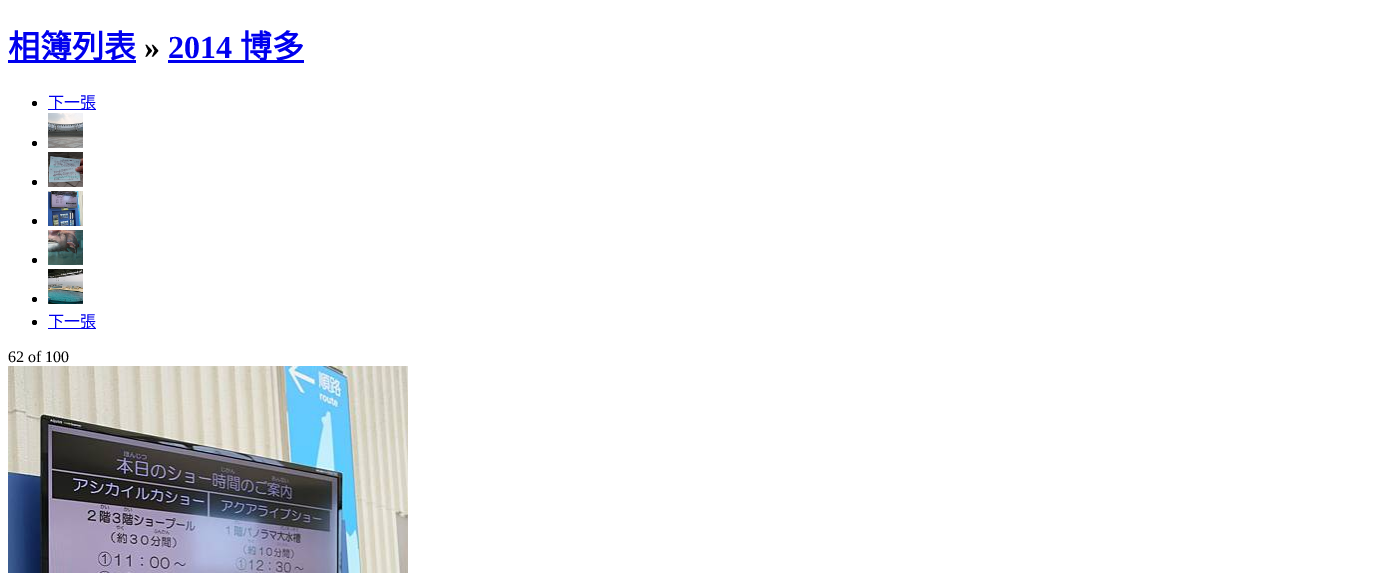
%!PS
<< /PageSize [1375 573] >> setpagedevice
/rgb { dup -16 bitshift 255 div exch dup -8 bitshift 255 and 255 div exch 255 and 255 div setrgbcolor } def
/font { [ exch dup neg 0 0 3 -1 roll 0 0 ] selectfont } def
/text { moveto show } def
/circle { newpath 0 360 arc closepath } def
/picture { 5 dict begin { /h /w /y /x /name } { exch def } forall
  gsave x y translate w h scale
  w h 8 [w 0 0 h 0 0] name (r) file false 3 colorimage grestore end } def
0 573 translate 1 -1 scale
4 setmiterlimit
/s1 { /NotoSansCJKTC-Bold 32 font 16#0000EE rgb } def
/s2 { /LiberationSerif-Bold 32 font 16#000000 rgb } def
/s3 { /LiberationSerif-Bold 32 font 16#0000EE rgb } def
/s4 { /NotoSansCJKTC-Regular 16 font 16#0000EE rgb } def
/s5 { /LiberationSerif-Regular 16 font 16#000000 rgb } def
16#FFFFFF rgb
0 0 1375 573 rectfill
16#0000EE rgb
8 60 128 3 rectfill
s1
(相簿列表) 8 58 text
s2
(») 144 58 text
s3
(2014) 168 58 text
168 60 136 3 rectfill
s1
(博多) 240 58 text
16#000000 rgb
34.5 103.5 2.5 circle fill
16#0000EE rgb
48 109 48 1 rectfill
s4
(下一張) 48 108 text
16#000000 rgb
34.5 143.5 2.5 circle fill
(pic1.raw) 48 113 35 35 picture
34.5 182.5 2.5 circle fill
(pic2.raw) 48 152 35 35 picture
34.5 221.5 2.5 circle fill
(pic3.raw) 48 191 35 35 picture
34.5 260.5 2.5 circle fill
(pic4.raw) 48 230 35 35 picture
34.5 299.5 2.5 circle fill
(pic5.raw) 48 269 35 35 picture
34.5 322.5 2.5 circle fill
16#0000EE rgb
48 328 48 1 rectfill
(下一張) 48 327 text
s5
(62 of 100) 8 362 text
(pic6.raw) 8 366 400 207 picture
showpage
